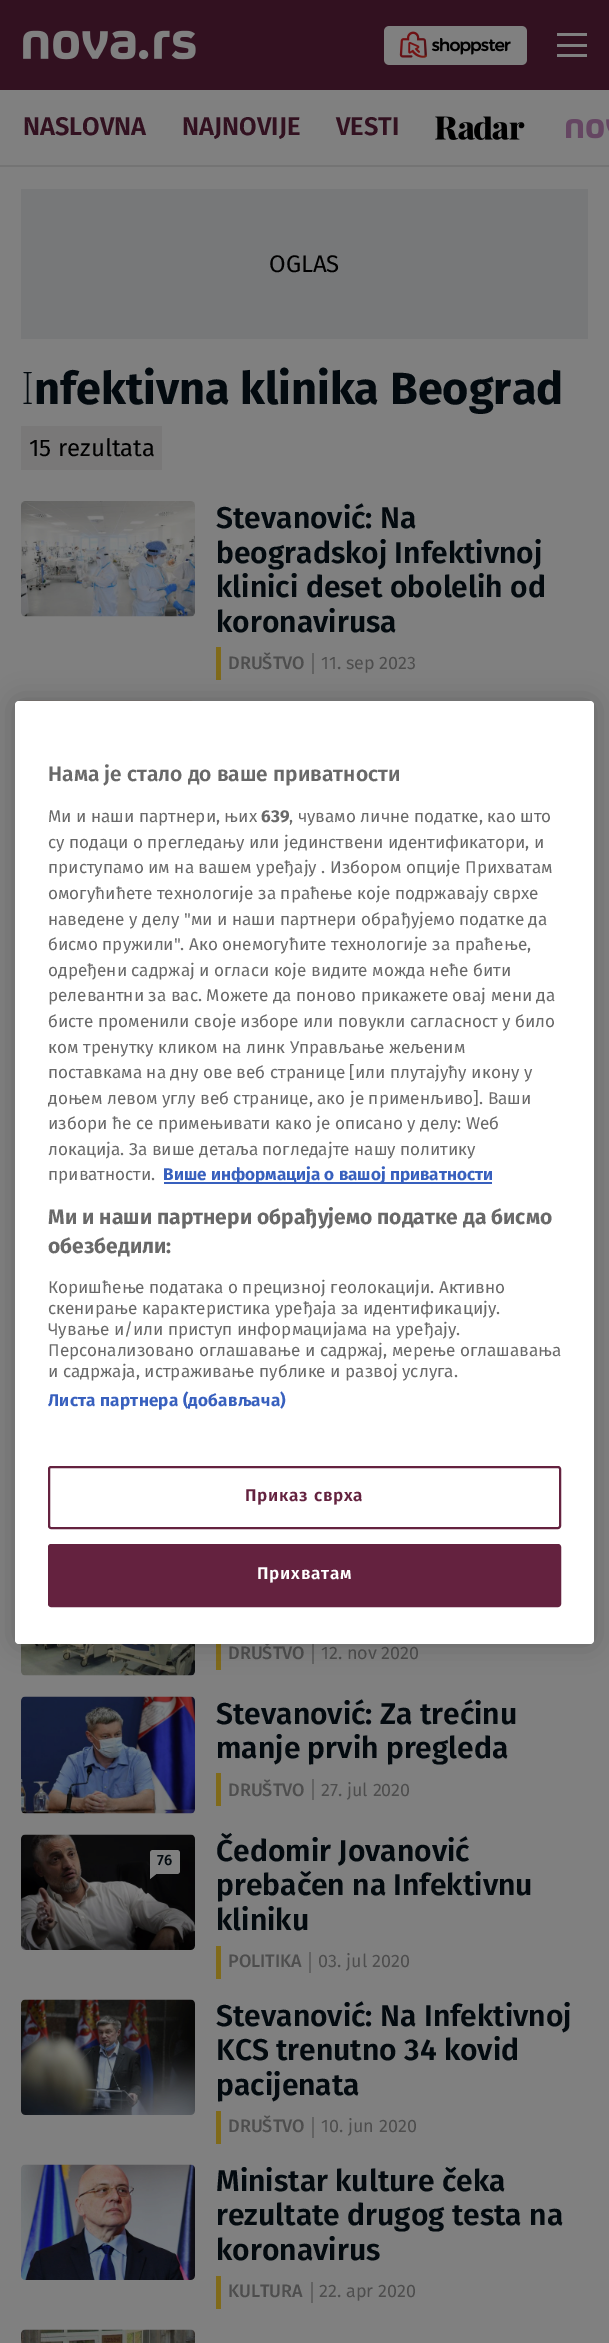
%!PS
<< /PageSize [609 2343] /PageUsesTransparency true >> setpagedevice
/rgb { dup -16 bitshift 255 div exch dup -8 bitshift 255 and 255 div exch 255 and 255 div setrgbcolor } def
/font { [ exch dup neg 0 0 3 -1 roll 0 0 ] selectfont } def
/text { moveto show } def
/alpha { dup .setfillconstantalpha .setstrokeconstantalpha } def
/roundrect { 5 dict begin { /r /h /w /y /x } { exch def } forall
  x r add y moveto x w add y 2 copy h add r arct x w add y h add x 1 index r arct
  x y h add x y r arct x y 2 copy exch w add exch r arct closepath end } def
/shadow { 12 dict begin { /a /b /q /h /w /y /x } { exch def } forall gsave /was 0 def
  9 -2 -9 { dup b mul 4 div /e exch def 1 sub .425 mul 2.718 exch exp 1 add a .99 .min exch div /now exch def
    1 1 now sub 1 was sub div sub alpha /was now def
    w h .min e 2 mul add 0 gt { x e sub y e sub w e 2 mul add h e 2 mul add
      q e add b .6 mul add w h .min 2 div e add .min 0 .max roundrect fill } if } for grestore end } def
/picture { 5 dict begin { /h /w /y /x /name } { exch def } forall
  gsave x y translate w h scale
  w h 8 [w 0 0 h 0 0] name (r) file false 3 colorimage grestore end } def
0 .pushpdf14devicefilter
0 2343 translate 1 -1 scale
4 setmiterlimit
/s1 { /FiraSans-SemiBold 25.5 font 16#321120 rgb } def
/s2 { /FiraSans-Regular 24 font 16#000000 rgb } def
/s3 { /NotoSans-ExtraLight 45 font 16#030A0F rgb } def
/s4 { /FiraSans-Bold 45 font 16#030A0F rgb } def
/s5 { /FiraSans-SemiBold 30 font 16#030A0F rgb } def
/s6 { /FiraSans-Medium 18 font 16#4D4D4D rgb } def
/s7 { /FiraSans-Regular 18 font 16#4D4D4D rgb } def
/s8 { /FiraSans-Medium 15 font 16#030A0F rgb } def
/s9 { /FiraSans-SemiBold 21 font 16#696969 rgb } def
/s10 { /FiraSans-Regular 17.1 font 16#696969 rgb } def
/s11 { /FiraSans-Bold 17.1 font 16#696969 rgb } def
/s12 { /FiraSans-Bold 17.1 font 16#3860BE rgb } def
/s13 { /FiraSans-Bold 21 font 16#696969 rgb } def
16#808080 rgb
0 0 609 2343 rectfill
16#321120 rgb
0 0 609 90 rectfill
(pic1.raw) 23 30 173 30 picture
(pic2.raw) 384 26 143 39 picture
16#808080 rgb
557 33 30 3 rectfill
557 44 30 3 rectfill
557 54 30 3 rectfill
16#747474 rgb
0 165 609 2 rectfill
s1
(NASLOVNA) 23 135 text
(NAJNOVIJE) 182 135 text
(VESTI) 336 135 text
(pic3.raw) 435 116 90 24 picture
(pic4.raw) 566 119 43 20 picture
16#777879 rgb
21 189 567 150 rectfill
s2
(OGLAS) 269 272 text
s3
(I) 21 404 text
s4
(nfektivna klinika Beograd) 34 404 text
16#797878 rgb
21 426 141 44 rectfill
s2
(15 rezultata) 29 456 text
(pic5.raw) 21 501 174 116 picture
s5
(Stevanović: Na) 216 528 text
(beogradskoj Infektivnoj) 216 563 text
(klinici deset obolelih od) 216 597 text
(koronavirusa) 216 632 text
16#806A1A rgb
216 647 5 33 rectfill
s6
(DRUŠTVO) 228 669 text
16#626262 rgb
312 653 2 21 rectfill
s7
(11. sep 2023) 321 669 text
(pic6.raw) 23 700 170 1 picture
(pic7.raw) 21 1644 174 32 picture
16#806A1A rgb
216 1637 5 33 rectfill
s6
(DRUŠTVO) 228 1659 text
16#626262 rgb
312 1643 2 21 rectfill
s7
(12. nov 2020) 321 1659 text
(pic8.raw) 21 1696 174 118 picture
s5
(Stevanović: Za trećinu) 216 1724 text
(manje prvih pregleda) 216 1758 text
16#806A1A rgb
216 1773 5 33 rectfill
s6
(DRUŠTVO) 228 1796 text
16#626262 rgb
312 1779 2 21 rectfill
s7
(27. jul 2020) 321 1796 text
(pic9.raw) 21 1834 174 116 picture
16#808080 rgb
150 1850 30 24 3 roundrect fill
s8
(76) 157 1865 text
16#808080 rgb
150 1879 moveto 150 1865.5 lineto 157.5 1873 lineto closepath fill
s5
(Čedomir Jovanović) 216 1861 text
(prebačen na Infektivnu) 216 1895 text
(kliniku) 216 1930 text
16#806A1A rgb
216 1946 5 33 rectfill
s6
(POLITIKA) 228 1967 text
16#626262 rgb
309 1952 2 21 rectfill
s7
(03. jul 2020) 318 1967 text
(pic10.raw) 21 1999 174 116 picture
s5
(Stevanović: Na Infektivnoj) 216 2026 text
(KCS trenutno 34 kovid) 216 2060 text
(pacijenata) 216 2095 text
16#806A1A rgb
216 2111 5 33 rectfill
s6
(DRUŠTVO) 228 2132 text
16#626262 rgb
312 2117 2 21 rectfill
s7
(10. jun 2020) 321 2132 text
(pic11.raw) 21 2164 174 116 picture
s5
(Ministar kulture čeka) 216 2191 text
(rezultate drugog testa na) 216 2225 text
(koronavirus) 216 2260 text
16#806A1A rgb
216 2276 5 33 rectfill
s6
(KULTURA) 228 2297 text
16#626262 rgb
311 2282 2 21 rectfill
s7
(22. apr 2020) 319 2297 text
(pic12.raw) 21 2329 174 14 picture
16#000000 rgb
15 701 579 943 4 13.5 0.2 shadow
16#FFFFFF rgb
15 701 579 943 4 roundrect fill
s9
(Нама је стало до ваше приватности) 48 781 text
s10
(Ми и наши партнери, њих) 48 822 text
s11
(639) 261 822 text
s10
(, чувамо личне податке, као што) 289 822 text
(су подаци о прегледању или јединствени идентификатори, и) 48 848 text
(приступамо им на вашем уређају . Избором опције Прихватам) 48 873 text
(омогућићете технологије за праћење које подржавају сврхе) 48 899 text
(наведене у делу "ми и наши партнери обрађујемо податке да) 48 925 text
(бисмо пружили". Ако онемогућите технологије за праћење,) 48 950 text
(одређени садржај и огласи које видите можда неће бити) 48 976 text
(релевантни за вас. Можете да поново прикажете овај мени да) 48 1001 text
(бисте променили своје изборе или повукли сагласност у било) 48 1027 text
(ком тренутку кликом на линк Управљање жељеним) 48 1053 text
(поставкама на дну ове веб странице [или плутајућу икону у) 48 1078 text
(доњем левом углу веб странице, ако је применљиво]. Ваши) 48 1104 text
(избори ће се примењивати како је описано у делу: Wеб) 48 1129 text
(локација. За више детаља погледајте нашу политику) 48 1155 text
(приватности.) 48 1180 text
16#3860BE rgb
164 1182 328 2 rectfill
s12
(Више информација о вашој приватности) 163 1180 text
s13
(Ми и наши партнери обрађујемо податке да бисмо) 48 1224 text
(обезбедили:) 48 1253 text
s10
(Коришћење података о прецизној геолокацији. Активно) 48 1293 text
(скенирање карактеристика уређаја за идентификацију.) 48 1314 text
(Чување и/или приступ информацијама на уређају.) 48 1335 text
(Персонализовано оглашавање и садржај, мерење оглашавања) 48 1356 text
(и садржаја, истраживање публике и развој услуга.) 48 1377 text
/FiraSans-Bold 17.1 font
16#3860BE rgb
48 1406 moveto 0.2 0 (Листа партнера \(добављача\)) ashow
16#64223F rgb
2 setlinewidth
49 1467 511 61 2 roundrect stroke
/FiraSans-SemiBold 17.1 font
245 1501 moveto 0.8 0 (Приказ сврха) ashow
49 1545 511 61 2 roundrect gsave fill grestore
stroke
16#FFFFFF rgb
257 1579 moveto 0.8 0 (Прихватам) ashow
.poppdf14devicefilter showpage
